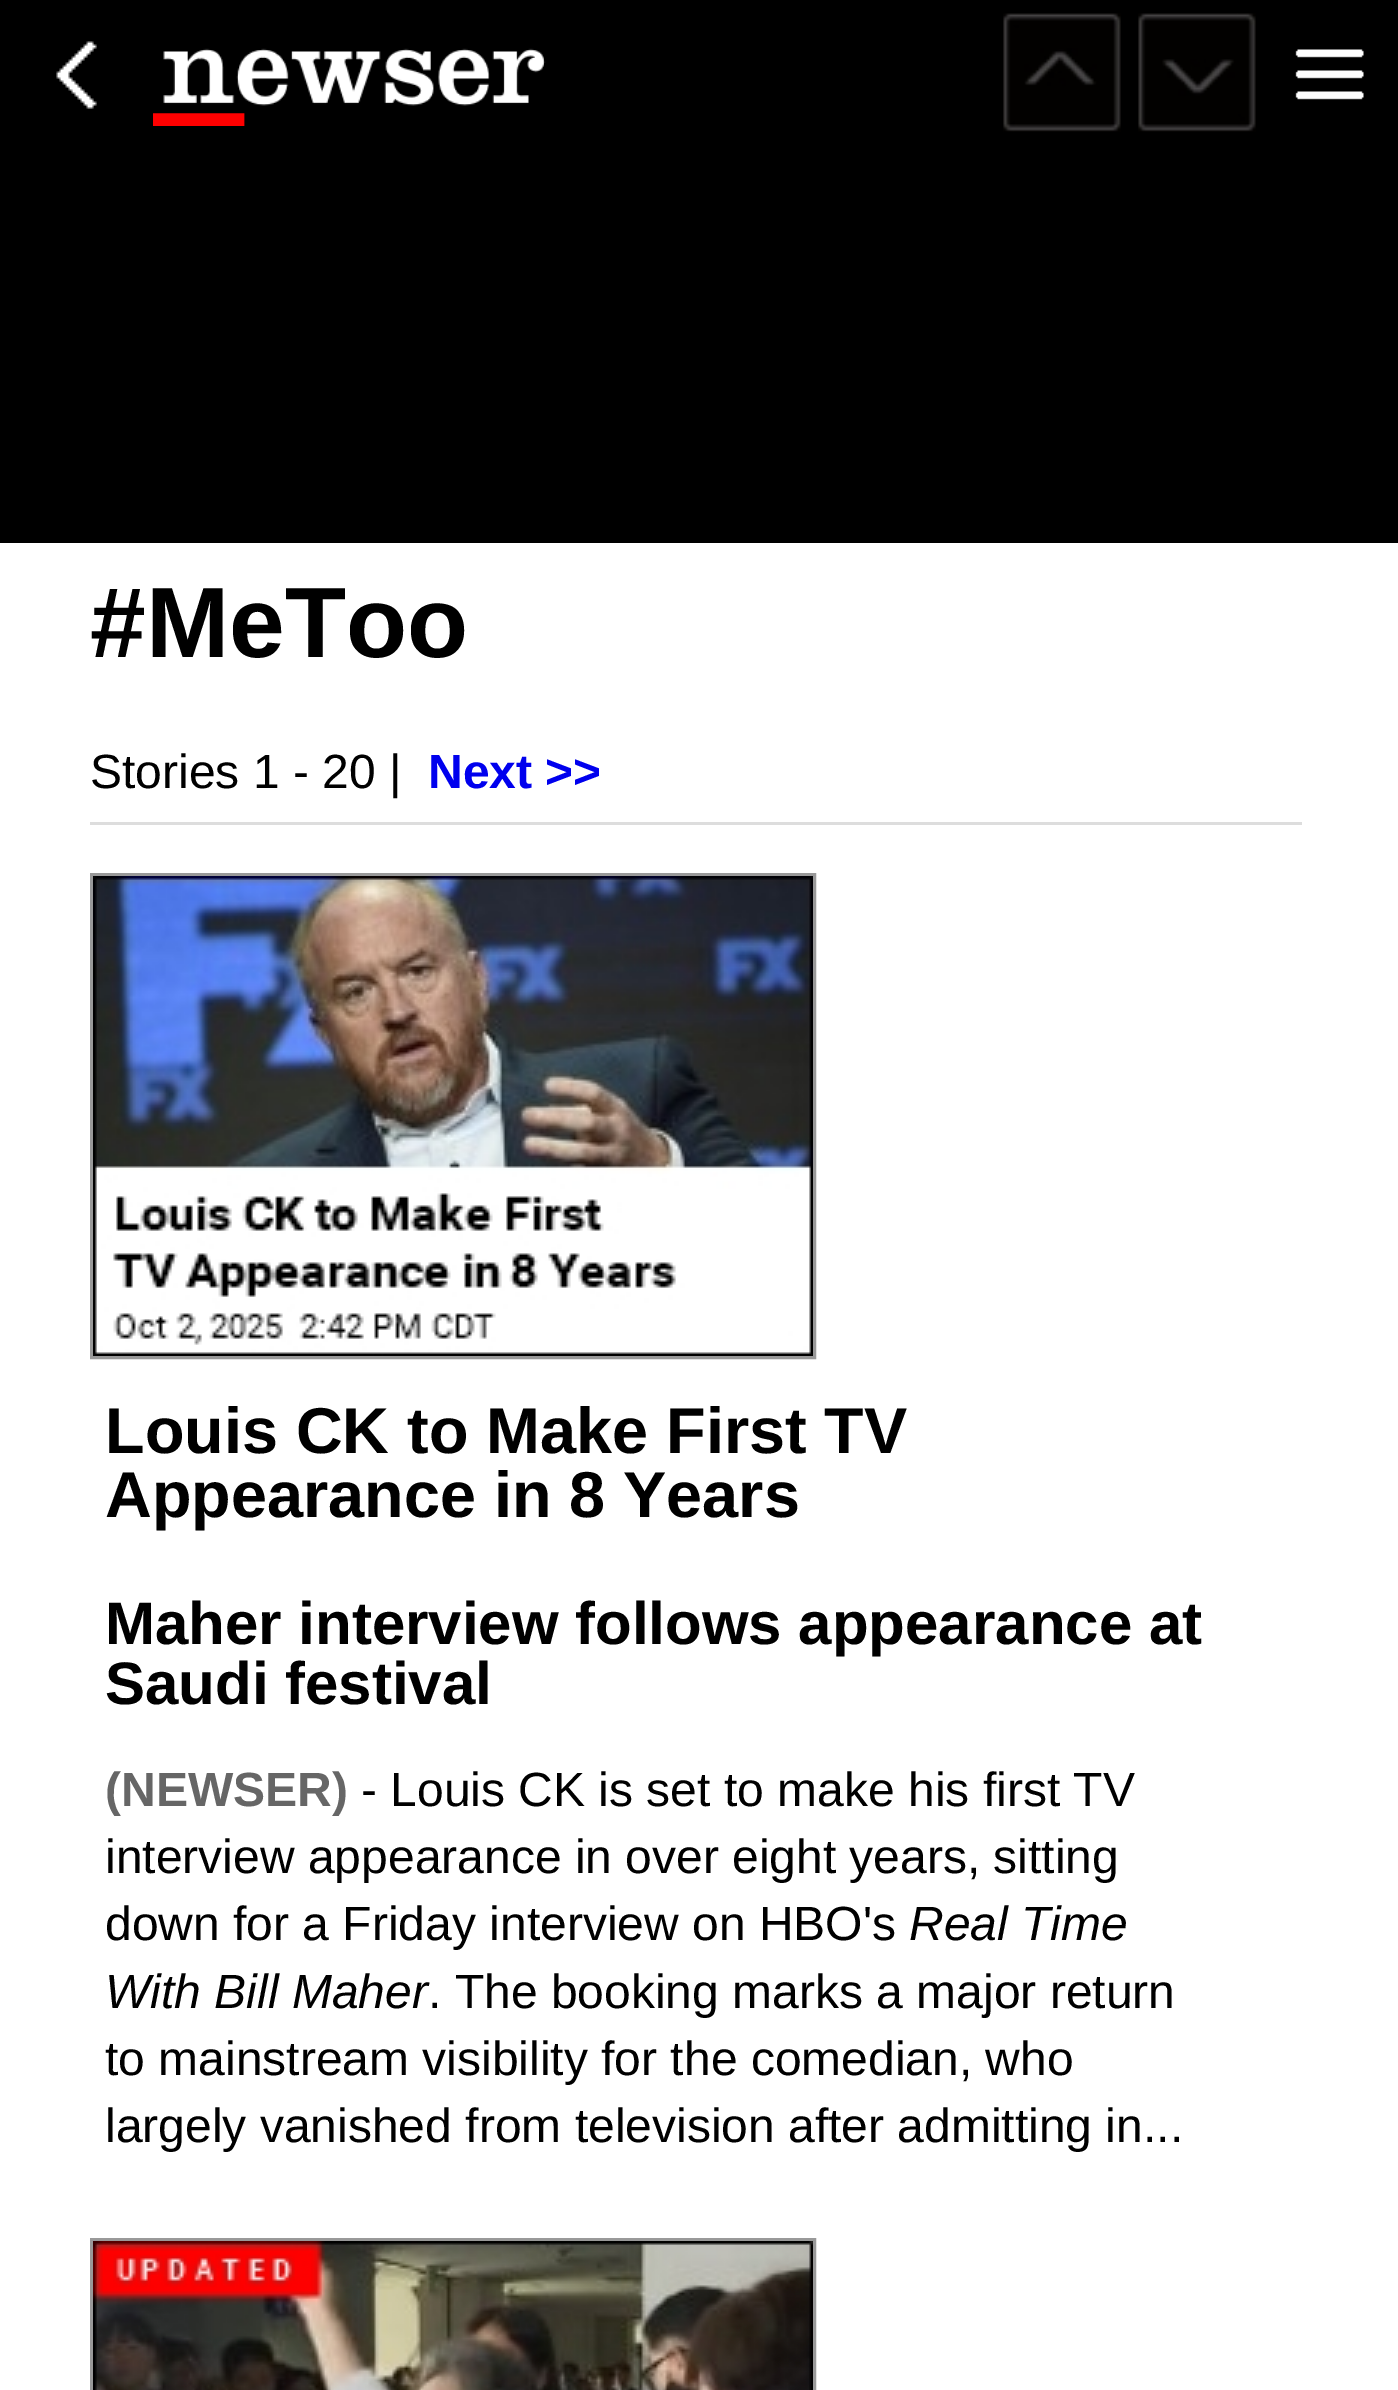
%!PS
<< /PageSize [1398 2390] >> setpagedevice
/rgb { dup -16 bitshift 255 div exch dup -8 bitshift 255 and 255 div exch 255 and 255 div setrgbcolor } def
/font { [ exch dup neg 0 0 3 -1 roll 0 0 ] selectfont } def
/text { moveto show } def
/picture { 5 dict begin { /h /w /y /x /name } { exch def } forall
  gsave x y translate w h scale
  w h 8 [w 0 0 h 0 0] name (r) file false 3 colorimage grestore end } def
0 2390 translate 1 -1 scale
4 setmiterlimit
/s1 { /LiberationSans-Bold 100 font 16#000000 rgb } def
/s2 { /LiberationSans-Regular 48 font 16#000000 rgb } def
/s3 { /LiberationSans-Bold 48 font 16#0000EE rgb } def
/s4 { /LiberationSans-Bold 64.75 font 16#000000 rgb } def
/s5 { /LiberationSans-Bold 60 font 16#000000 rgb } def
/s6 { /LiberationSans-Bold 48 font 16#666666 rgb } def
/s7 { /LiberationSans-Italic 48 font 16#000000 rgb } def
16#FFFFFF rgb
0 0 1398 2390 rectfill
16#000000 rgb
0 0 1398 543 rectfill
(pic1.raw) 56 41 41 68 picture
(pic2.raw) 153 48 393 78 picture
(pic3.raw) 1003 13 118 119 picture
(pic4.raw) 1138 13 118 119 picture
(pic5.raw) 1295 49 69 51 picture
s1
(#MeToo) 90 657 text
s2
(Stories 1 - 20 |) 90 788 text
s3
(Next >>) 428 788 text
16#DDDDDD rgb
90 822 1212 3 rectfill
16#999999 rgb
3 setlinewidth
91.5 874.5 723 483 rectstroke
(pic6.raw) 93 876 720 480 picture
s4
(Louis CK to Make First TV) 105 1453 text
(Appearance in 8 Years) 105 1517 text
s5
(Maher interview follows appearance at) 105 1644 text
(Saudi festival) 105 1704 text
s6
(\(NEWSER\)) 105 1806 text
s2
(- Louis CK is set to make his first TV) 361 1806 text
(interview appearance in over eight years, sitting) 105 1873 text
(down for a Friday interview on HBO's) 105 1940 text
s7
(Real Time) 909 1940 text
(With Bill Maher) 105 2008 text
s2
(. The booking marks a major return) 428 2008 text
(to mainstream visibility for the comedian, who) 105 2075 text
(largely vanished from television after admitting in...) 105 2142 text
16#999999 rgb
91.5 2239.5 723 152 rectstroke
(pic7.raw) 93 2241 720 149 picture
showpage
